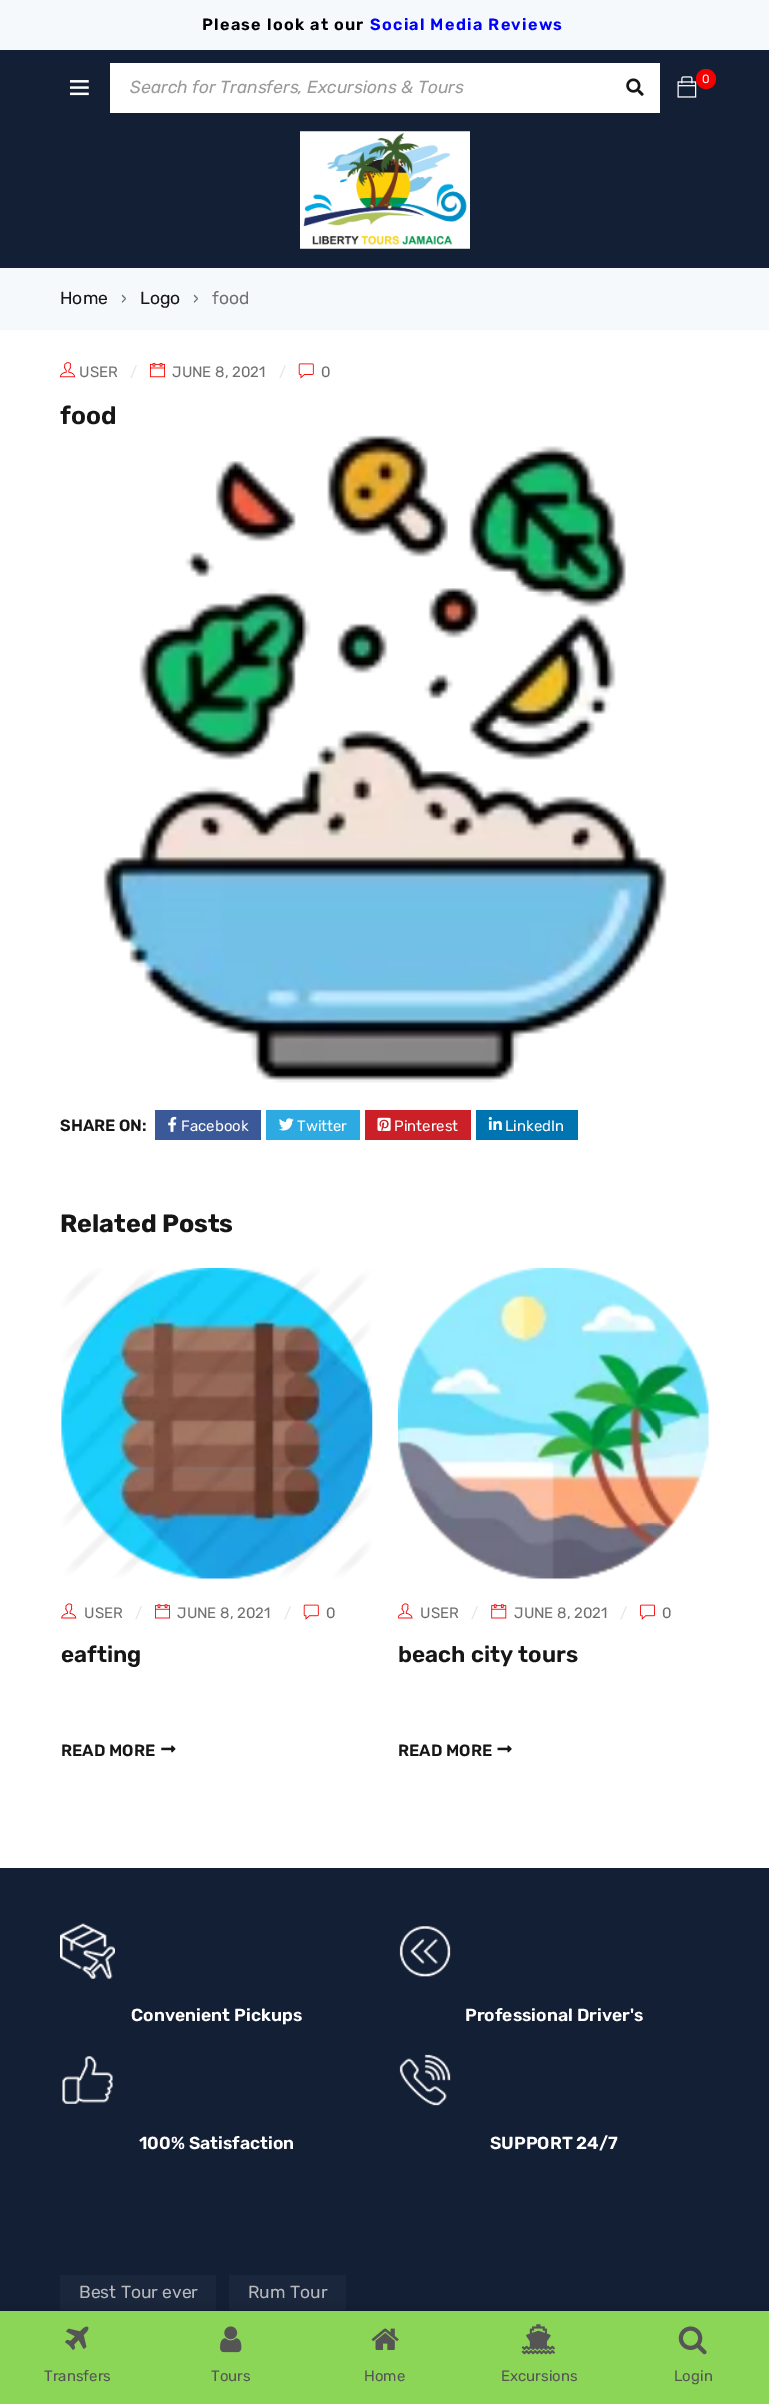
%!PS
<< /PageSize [769 2404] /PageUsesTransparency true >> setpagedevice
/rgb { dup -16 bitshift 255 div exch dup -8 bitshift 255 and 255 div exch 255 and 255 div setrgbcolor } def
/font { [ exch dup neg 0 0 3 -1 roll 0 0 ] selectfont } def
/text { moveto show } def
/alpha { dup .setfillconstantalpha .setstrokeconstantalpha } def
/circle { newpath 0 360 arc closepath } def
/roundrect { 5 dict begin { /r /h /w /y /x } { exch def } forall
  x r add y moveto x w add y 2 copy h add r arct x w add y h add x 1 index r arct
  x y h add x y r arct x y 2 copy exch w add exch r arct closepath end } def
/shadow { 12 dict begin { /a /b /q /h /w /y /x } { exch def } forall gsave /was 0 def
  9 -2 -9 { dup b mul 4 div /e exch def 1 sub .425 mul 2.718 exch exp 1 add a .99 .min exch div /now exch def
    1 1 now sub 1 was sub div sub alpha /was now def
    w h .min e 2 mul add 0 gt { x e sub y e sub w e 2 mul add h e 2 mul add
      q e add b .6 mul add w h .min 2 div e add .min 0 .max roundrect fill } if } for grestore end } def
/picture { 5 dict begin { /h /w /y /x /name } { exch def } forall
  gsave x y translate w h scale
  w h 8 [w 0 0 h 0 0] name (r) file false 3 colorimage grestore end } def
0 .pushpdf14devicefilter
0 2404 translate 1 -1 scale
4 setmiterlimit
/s1 { /Rubik-Regular 12 font 16#FFFFFF rgb } def
/s2 { /Rubik-Italic 17.5 font 16#999999 rgb } def
/s3 { /Rubik-Regular 17.5 font 16#161616 rgb } def
/s4 { /Rubik-Regular 16.25 font 16#707070 rgb } def
/s5 { /Rubik-Regular 17.5 font 16#707070 rgb } def
/s6 { /Rubik-Regular 15 font 16#707070 rgb } def
/s7 { /Rubik-Regular 15 font 16#E5E5E5 rgb } def
/s8 { /Rubik-SemiBold 25 font 16#161616 rgb } def
/s9 { /Rubik-SemiBold 16.25 font 16#161616 rgb } def
/s10 { /Rubik-Regular 15 font 16#FFFFFF rgb } def
/s11 { /Rubik-Bold 25 font 16#161616 rgb } def
/s12 { /Rubik-SemiBold 22.5 font 16#161616 rgb } def
/s13 { /Rubik-SemiBold 17.5 font 16#FFFFFF rgb } def
/s14 { /Rubik-Regular 17.5 font 16#B7B9BC rgb } def
/s15 { /Rubik-Regular 15 font 16#555555 rgb } def
16#FFFFFF rgb
0 0 769 2404 rectfill
16#F6F9FC rgb
0 0 769 50 rectfill
/Rubik-SemiBold 16.25 font
16#000000 rgb
202 30 moveto 1.25 0 (Please look at our) ashow
16#0000FF rgb
370 30 moveto 1.25 0 (Social Media Reviews) ashow
16#131F35 rgb
0 50 769 218 rectfill
(pic1.raw) 677 76 20 22 picture
16#F50000 rgb
706 79 10 circle fill
s1
(0) 702 83 text
(pic2.raw) 70 80 19 16 picture
110 63 550 50 rectfill
s2
(Search for Transfers, Excursions & Tours) 130 93 text
(pic3.raw) 626 78 18 18 picture
(pic4.raw) 300 131 170 118 picture
16#F6F9FC rgb
0 268 769 62 rectfill
s3
(Home) 60 304 text
s4
(›) 121 304 text
s3
(Logo) 140 304 text
s4
(›) 193 304 text
s5
(food) 212 304 text
(pic5.raw) 60 362 15 16 picture
s6
(USER) 79 377 text
s7
(/) 130 377 text
(pic6.raw) 150 363 15 15 picture
s6
(JUNE 8, 2021) 172 377 text
s7
(/) 279 377 text
(pic7.raw) 298 363 16 16 picture
s6
(0) 321 377 text
s8
(food) 60 424 text
(pic8.raw) 103 435 564 648 picture
s9
(SHARE ON:) 60 1131 text
16#3B5998 rgb
155 1110 106 30 rectfill
(pic9.raw) 168 1116 9 16 picture
s10
(Facebook) 181 1131 text
16#2CAAE1 rgb
266 1110 94 30 rectfill
(pic10.raw) 279 1118 15 13 picture
s10
(Twitter) 297 1131 text
16#CB2027 rgb
365 1110 106 30 rectfill
(pic11.raw) 377 1117 14 14 picture
s10
(Pinterest) 394 1131 text
16#0073B1 rgb
476 1110 102 30 rectfill
(pic12.raw) 488 1116 14 14 picture
s10
(LinkedIn) 505 1131 text
s11
(Related Posts) 60 1232 text
(pic13.raw) 61 1268 312 312 picture
(pic14.raw) 61 1603 16 16 picture
s6
(USER) 84 1618 text
s7
(/) 135 1618 text
(pic15.raw) 155 1604 15 15 picture
s6
(JUNE 8, 2021) 177 1618 text
s7
(/) 284 1618 text
(pic16.raw) 303 1604 16 16 picture
s6
(0) 326 1618 text
s12
(eafting) 61 1662 text
s9
(READ MORE) 61 1756 text
(pic17.raw) 161 1745 15 8 picture
(pic18.raw) 398 1268 312 312 picture
(pic19.raw) 398 1603 15 16 picture
s6
(USER) 420 1618 text
s7
(/) 471 1618 text
(pic20.raw) 491 1604 16 15 picture
s6
(JUNE 8, 2021) 514 1618 text
s7
(/) 620 1618 text
(pic21.raw) 640 1604 15 16 picture
s6
(0) 662 1618 text
s12
(beach city tours) 398 1662 text
s9
(READ MORE) 398 1756 text
(pic22.raw) 497 1745 15 8 picture
16#131F35 rgb
0 1868 769 443 rectfill
(pic23.raw) 60 1923 55 56 picture
s13
(Convenient Pickups) 131 2021 text
(pic24.raw) 399 1926 52 51 picture
(Professional Driver's) 465 2021 text
(pic25.raw) 62 2056 51 48 picture
(100% Satisfaction) 139 2149 text
(pic26.raw) 399 2054 52 52 picture
(SUPPORT 24/7) 490 2149 text
16#1A263B rgb
60 2275 156 35 rectfill
s14
(Best Tour ever) 79 2298 text
16#1A263B rgb
229 2275 117 35 rectfill
s14
(Rum Tour) 248 2298 text
16#000000 rgb
0 2305 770 94 0 6 0.1 shadow
16#8CD657 rgb
0 2311 769 93 rectfill
(pic27.raw) 65 2326 24 24 picture
s15
(Transfers) 44 2381 text
(pic28.raw) 220 2326 22 27 picture
(Tours) 211 2381 text
(pic29.raw) 371 2328 28 22 picture
(Home) 364 2381 text
(pic30.raw) 521 2324 35 31 picture
(Excursions) 501 2381 text
(pic31.raw) 678 2326 29 29 picture
(Login) 674 2381 text
.poppdf14devicefilter showpage
